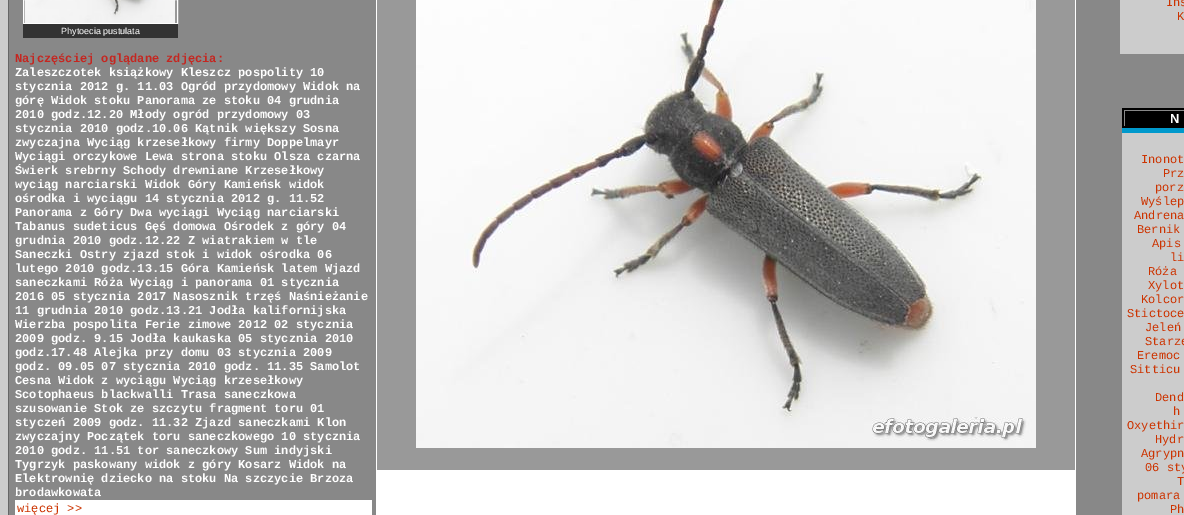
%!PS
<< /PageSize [1184 515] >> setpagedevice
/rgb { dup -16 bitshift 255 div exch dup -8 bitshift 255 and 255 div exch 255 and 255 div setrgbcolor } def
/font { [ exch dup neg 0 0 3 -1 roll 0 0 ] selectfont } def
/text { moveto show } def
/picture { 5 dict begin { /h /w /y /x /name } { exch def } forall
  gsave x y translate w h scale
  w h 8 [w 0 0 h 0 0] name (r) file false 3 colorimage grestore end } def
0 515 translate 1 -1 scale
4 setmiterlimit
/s1 { /LiberationSans-Regular 9 font 16#FFFFFF rgb } def
/s2 { /LiberationMono-Bold 12 font 16#C52620 rgb } def
/s3 { /LiberationMono-Bold 12 font 16#FFFFFF rgb } def
/s4 { /LiberationMono-Regular 12 font 16#CC3300 rgb } def
/s5 { /LiberationSans-Bold 13 font 16#FFFFFF rgb } def
16#CCCCCC rgb
0 0 1184 515 rectfill
16#888888 rgb
9 0 1175 515 rectfill
16#666666 rgb
8 0 1 515 rectfill
16#999999 rgb
23.5 -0.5 moveto 177.5 -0.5 lineto 177.5 23.5 lineto 23.5 23.5 lineto closepath gsave fill grestore
16#FFFFFF rgb
stroke
(pic1.raw) 25 0 150 23 picture
16#333333 rgb
23 24 155 14 rectfill
s1
(Phytoecia pustulata) 61 34 text
s2
(Najczęściej oglądane zdjęcia:) 15 62 text
s3
(Zaleszczotek książkowy Kleszcz pospolity 10) 15 76 text
(stycznia 2012 g. 11.03 Ogród przydomowy Widok na) 15 90 text
(górę Widok stoku Panorama ze stoku 04 grudnia) 15 104 text
(2010 godz.12.20 Młody ogród przydomowy 03) 15 118 text
(stycznia 2010 godz.10.06 Kątnik większy Sosna) 15 132 text
(zwyczajna Wyciąg krzesełkowy firmy Doppelmayr) 15 146 text
(Wyciągi orczykowe Lewa strona stoku Olsza czarna) 15 160 text
(Świerk srebrny Schody drewniane Krzesełkowy) 15 174 text
(wyciąg narciarski Widok Góry Kamieńsk widok) 15 188 text
(ośrodka i wyciągu 14 stycznia 2012 g. 11.52) 15 202 text
(Panorama z Góry Dwa wyciągi Wyciąg narciarski) 15 216 text
(Tabanus sudeticus Gęś domowa Ośrodek z góry 04) 15 230 text
(grudnia 2010 godz.12.22 Z wiatrakiem w tle) 15 244 text
(Saneczki Ostry zjazd stok i widok ośrodka 06) 15 258 text
(lutego 2010 godz.13.15 Góra Kamieńsk latem Wjazd) 15 272 text
(saneczkami Róża Wyciąg i panorama 01 stycznia) 15 286 text
(2016 05 stycznia 2017 Nasosznik trzęś Naśnieżanie) 15 300 text
(11 grudnia 2010 godz.13.21 Jodła kalifornijska) 15 314 text
(Wierzba pospolita Ferie zimowe 2012 02 stycznia) 15 328 text
(2009 godz. 9.15 Jodła kaukaska 05 stycznia 2010) 15 342 text
(godz.17.48 Alejka przy domu 03 stycznia 2009) 15 356 text
(godz. 09.05 07 stycznia 2010 godz. 11.35 Samolot) 15 370 text
(Cesna Widok z wyciągu Wyciąg krzesełkowy) 15 384 text
(Scotophaeus blackwalli Trasa saneczkowa) 15 398 text
(szusowanie Stok ze szczytu fragment toru 01) 15 412 text
(styczeń 2009 godz. 11.32 Zjazd saneczkami Klon) 15 426 text
(zwyczajny Początek toru saneczkowego 10 stycznia) 15 440 text
(2010 godz. 11.51 tor saneczkowy Sum indyjski) 15 454 text
(Tygrzyk paskowany widok z góry Kosarz Widok na) 15 468 text
(Elektrownię dziecko na stoku Na szczycie Brzoza) 15 482 text
(brodawkowata) 15 496 text
15 500 357 15 rectfill
s4
(więcej >>) 17 512 text
16#FFFFFF rgb
1075 0 1 515 rectfill
376 0 1 515 rectfill
16#999999 rgb
377 0 698 470 rectfill
(pic2.raw) 416 0 620 448 picture
16#FFFFFF rgb
377 470 698 45 rectfill
16#CCCCCC rgb
1120 0 64 54 rectfill
s4
(Ins) 1166 6 text
(K) 1177 20 text
16#000000 rgb
1122 108 62 20 rectfill
16#888888 rgb
1124 110 60 1 rectfill
1124 110 1 16 rectfill
s5
(N) 1170 123 text
16#0099CC rgb
1122 128 62 5 rectfill
16#CCCCCC rgb
1122 133 62 382 rectfill
s4
(Inonot) 1141 163 text
(Prz) 1163 177 text
(porz) 1155 191 text
(Wyślep) 1141 205 text
(Andrena) 1134 219 text
(Bernik) 1137 233 text
(Apis) 1152 247 text
(li) 1170 261 text
(Róża) 1148 275 text
(Xylot) 1148 289 text
(Kolcor) 1141 303 text
(Stictoce) 1127 317 text
(Jeleń) 1145 331 text
(Starze) 1145 345 text
(Eremoc) 1137 359 text
(Sitticu) 1130 373 text
(Dend) 1155 401 text
(h) 1173 415 text
(Oxyethir) 1127 429 text
(Hydr) 1155 443 text
(Agrypn) 1141 457 text
(06 sty) 1145 471 text
(T) 1177 485 text
(pomara) 1137 499 text
(Ph) 1170 513 text
showpage
